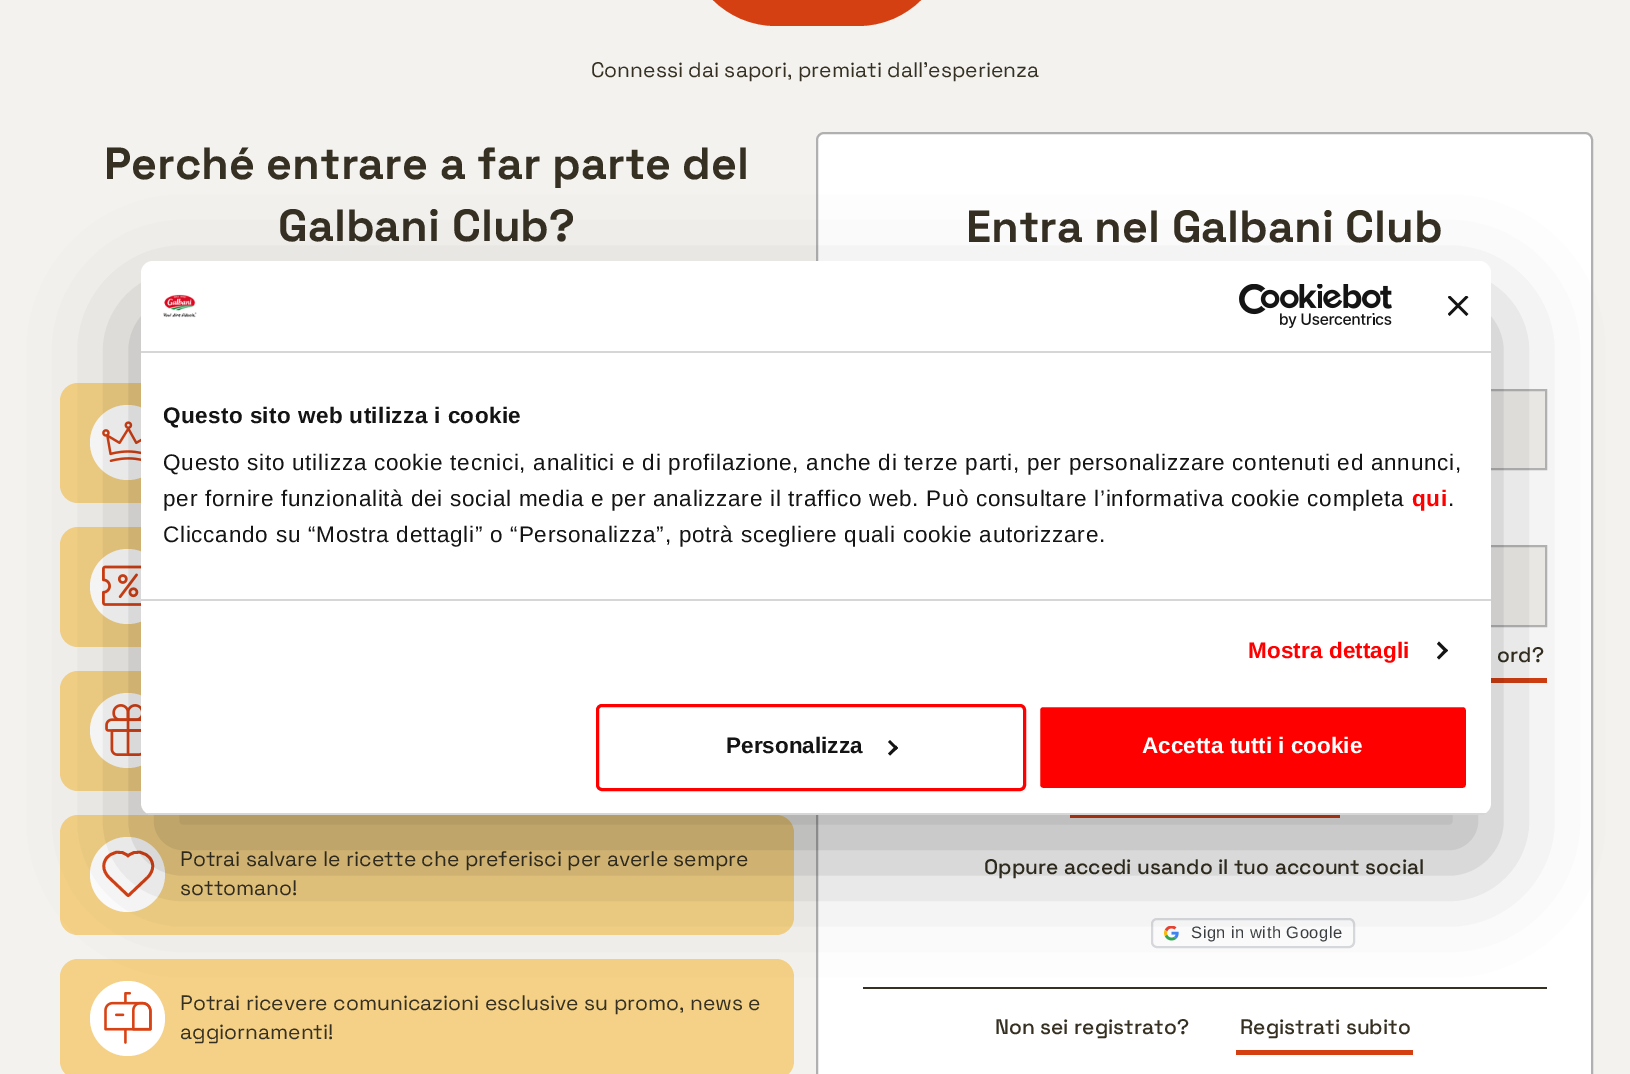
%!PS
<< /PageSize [1630 1074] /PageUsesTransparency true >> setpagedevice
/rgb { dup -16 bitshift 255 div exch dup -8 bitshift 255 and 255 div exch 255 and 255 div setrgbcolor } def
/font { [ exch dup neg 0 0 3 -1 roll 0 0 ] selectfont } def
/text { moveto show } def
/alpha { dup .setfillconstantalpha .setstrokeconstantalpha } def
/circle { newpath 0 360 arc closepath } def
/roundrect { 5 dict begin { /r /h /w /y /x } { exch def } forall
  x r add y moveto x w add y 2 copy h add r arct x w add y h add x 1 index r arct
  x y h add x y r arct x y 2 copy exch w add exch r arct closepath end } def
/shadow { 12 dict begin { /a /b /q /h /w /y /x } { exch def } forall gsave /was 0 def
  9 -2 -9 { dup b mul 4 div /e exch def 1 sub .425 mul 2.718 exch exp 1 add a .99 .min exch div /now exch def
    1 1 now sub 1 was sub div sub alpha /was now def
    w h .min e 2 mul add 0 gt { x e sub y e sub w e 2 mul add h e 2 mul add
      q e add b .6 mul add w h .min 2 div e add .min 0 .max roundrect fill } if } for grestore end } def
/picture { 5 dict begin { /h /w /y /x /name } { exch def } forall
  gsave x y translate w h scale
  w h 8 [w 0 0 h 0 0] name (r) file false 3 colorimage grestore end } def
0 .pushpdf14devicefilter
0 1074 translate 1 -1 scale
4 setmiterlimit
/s1 { /SpaceGrotesk-Regular 21 font 16#353022 rgb } def
/s2 { /SpaceGrotesk-Bold 45 font 16#353022 rgb } def
/s3 { /SpaceGrotesk-Medium 21 font 16#353022 rgb } def
/s4 { /LiberationSans-Bold 22.5 font 16#141414 rgb } def
/s5 { /LiberationSans-Bold 22.5 font 16#FFFFFF rgb } def
16#F3F2EF rgb
0 0 1630 1074 rectfill
16#D54012 rgb
686 -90 moveto 948 -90 lineto 948 -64 lineto 948 -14.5 907.5 26 858 26 curveto 776 26 lineto 726.5 26 686 -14.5 686 -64 curveto closepath fill
s1
(Connessi dai sapori, premiati dall’esperienza) 591 77 text
s2
(Perché entrare a far parte del) 104 179 text
(Galbani Club?) 278 241 text
16#F4D186 rgb
60 383 734 120 18 roundrect fill
16#FFFFFF rgb
127.5 442.5 37.5 circle fill
(pic1.raw) 102 421 39 41 picture
16#F4D186 rgb
60 527 734 120 18 roundrect fill
16#FFFFFF rgb
127.5 586.5 37.5 circle fill
(pic2.raw) 102 565 39 41 picture
16#F4D186 rgb
60 671 734 120 18 roundrect fill
16#FFFFFF rgb
127.5 730.5 37.5 circle fill
(pic3.raw) 105 704 36 52 picture
16#F4D186 rgb
60 815 734 120 18 roundrect fill
16#FFFFFF rgb
127.5 874.5 37.5 circle fill
16#D84315 rgb
2.8 setlinewidth
1 setlinecap
1 setlinejoin
128.5 895.5 moveto 147.5 877.5 lineto 147.5 877.5 157 868.5 150.5 859 curveto 146 852 135 849 128 856 curveto 121.5 849 110.5 852 106 859 curveto 99.5 868.5 109 877.5 109 877.5 curveto 128 895.5 lineto stroke
s1
(Potrai salvare le ricette che preferisci per averle sempre) 180 866 text
(sottomano!) 180 895 text
16#F4D186 rgb
60 959 734 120 18 roundrect fill
16#FFFFFF rgb
127.5 1018.5 37.5 circle fill
(pic4.raw) 104 992 48 52 picture
s1
(Potrai ricevere comunicazioni esclusive su promo, news e) 180 1010 text
(aggiornamenti!) 180 1039 text
16#FFFFFF rgb
817 133 775 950 7 roundrect gsave fill grestore
16#B1B0B0 rgb
2 setlinewidth
0 setlinecap
0 setlinejoin
stroke
s2
(Entra nel Galbani Club) 966 242 text
16#F3F2EF rgb
1491 391 54 77 rectfill
16#B7B7B7 rgb
864 390 682 79 rectstroke
16#F3F2EF rgb
1491 547 54 78 rectfill
16#B7B7B7 rgb
864 546 682 80 rectstroke
16#D54012 rgb
1491 678 56 5 rectfill
s3
(ord?) 1497 662 text
16#D54012 rgb
1070 815 270 3 rectfill
s3
(Oppure accedi usando il tuo account social) 984 874 text
16#DADCE0 rgb
1152 919 202 28 5 roundrect stroke
(pic5.raw) 1164 926 15 15 picture
/LiberationSans-Regular 16.5 font
16#3C4043 rgb
1191 938 moveto 0.5 0 (Sign in with Google) ashow
16#353022 rgb
863 987 684 2 rectfill
s3
(Non sei registrato?) 995 1034 text
16#D54012 rgb
1236 1050 177 5 rectfill
s3
(Registrati subito) 1240 1034 text
16#000000 rgb
141 309 1350 554 12 51 0.3 shadow
16#FFFFFF rgb
141 261 1350 554 12 roundrect fill
16#D6D6D6 rgb
141 351 1350 2 rectfill
(pic6.raw) 163 294 34 24 picture
(pic7.raw) 1239 284 153 44 picture
(pic8.raw) 1448 296 21 20 picture
141 599 1350 2 rectfill
/LiberationSans-Bold 22.5 font
16#141414 rgb
163 423 moveto 0.4 0 (Questo sito web utilizza i cookie) ashow
/LiberationSans-Regular 22.5 font
163 470 moveto 0.75 0 (Questo sito utilizza cookie tecnici, analitici e di profilazione, anche di terze parti, per personalizzare contenuti ed annunci,) ashow
163 506 moveto 0.75 0 (per fornire funzionalità dei social media e per analizzare il traffico web. Può consultare l’informativa cookie completa) ashow
/LiberationSans-Bold 22.5 font
16#FF0000 rgb
1412 506 moveto 0.75 0 (qui) ashow
/LiberationSans-Regular 22.5 font
16#141414 rgb
1448 506 moveto 0.75 0 (.) ashow
163 542 moveto 0.75 0 (Cliccando su “Mostra dettagli” o “Personalizza”, potrà scegliere quali cookie autorizzare.) ashow
/LiberationSans-Bold 22.5 font
16#FF0000 rgb
1248 658 moveto 0.1 0 (Mostra dettagli) ashow
16#141414 rgb
1439 641.5 moveto 1448 650.5 lineto 1445.5 652.5 lineto 1437 644 lineto closepath fill
1445.5 648.5 moveto 1448 650.5 lineto 1439 659.5 lineto 1437 657.5 lineto closepath fill
gsave
141 261 1350 554 12 roundrect clip newpath
16#D6D6D6 rgb
141 813 1350 2 rectfill
grestore
16#FF0000 rgb
3 setlinewidth
597.5 705.5 427 84 4.5 roundrect stroke
s4
(Personalizza) 726 753 text
890 740 moveto 898 748 lineto 896 750 lineto 888 742 lineto closepath fill
896 745.5 moveto 898 748 lineto 890 755.5 lineto 888 753.5 lineto closepath fill
16#FF0000 rgb
1038.5 705.5 429 84 4.5 roundrect gsave fill grestore
16#FFFFFF rgb
stroke
(Accetta tutti i cookie) 1142 753 text
.poppdf14devicefilter showpage
